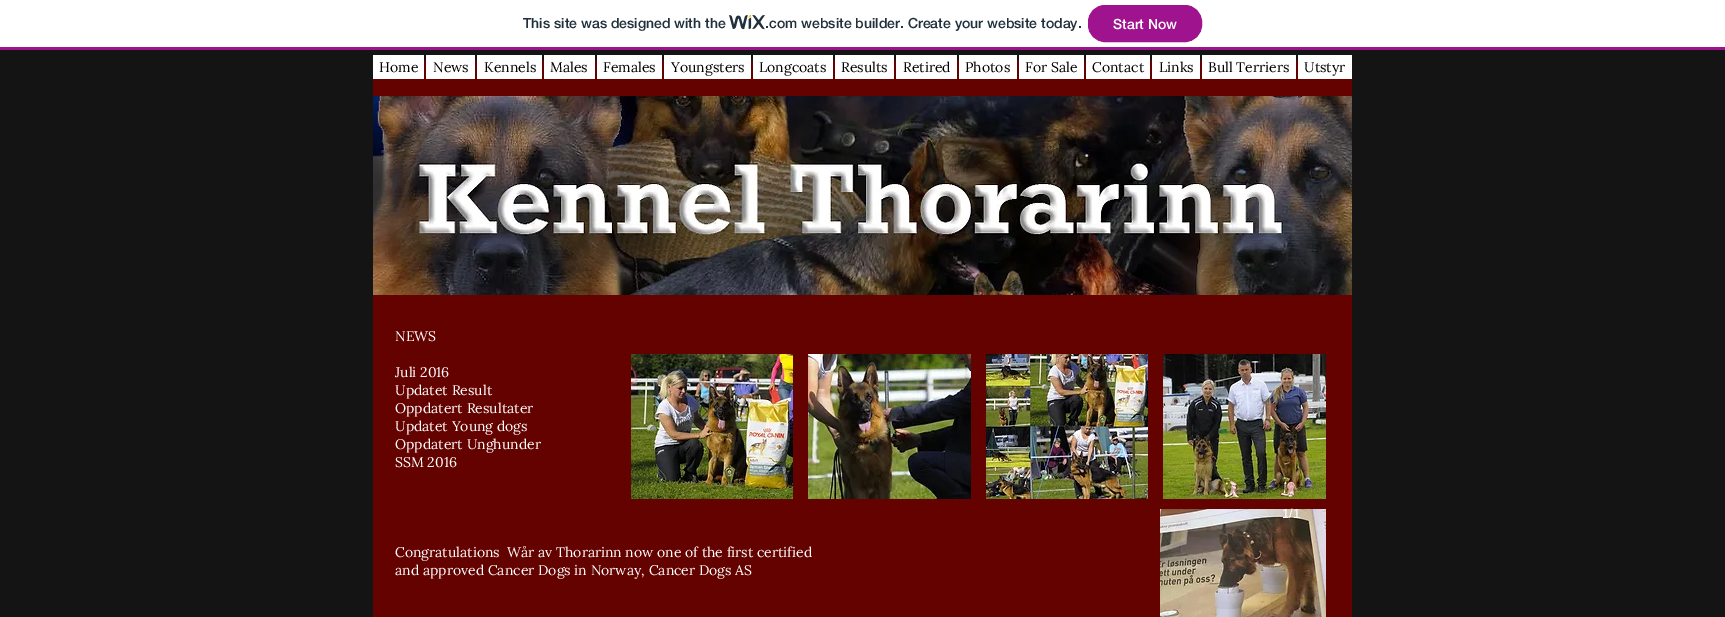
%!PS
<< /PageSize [1725 617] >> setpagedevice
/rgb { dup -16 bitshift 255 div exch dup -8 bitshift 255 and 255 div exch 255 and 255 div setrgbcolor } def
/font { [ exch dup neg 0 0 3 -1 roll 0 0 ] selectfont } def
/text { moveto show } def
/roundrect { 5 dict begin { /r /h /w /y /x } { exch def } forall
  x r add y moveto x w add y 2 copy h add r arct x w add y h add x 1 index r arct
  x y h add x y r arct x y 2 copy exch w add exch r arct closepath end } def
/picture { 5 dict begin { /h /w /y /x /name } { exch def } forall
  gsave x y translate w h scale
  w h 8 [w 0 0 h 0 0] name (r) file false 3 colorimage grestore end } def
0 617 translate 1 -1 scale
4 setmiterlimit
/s1 { /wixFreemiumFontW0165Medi-Medium 14 font 16#20303C rgb } def
/s2 { /wixFreemiumFontW0165Medi-Medium 14 font 16#FFFFFF rgb } def
/s3 { /Lora-Regular 14 font 16#000000 rgb } def
/s4 { /Lora-Regular 14 font 16#FFFFFF rgb } def
/s5 { /LiberationSans-Regular 13 font 16#FFFFFF rgb } def
16#FFFFFF rgb
0 0 1725 617 rectfill
16#A0138E rgb
0 47 1725 3 rectfill
s1
(This site was designed with the) 523 28 text
(pic1.raw) 729 15 36 15 picture
(.com website builder. Create your website today.) 765 28 text
16#A0138E rgb
1088.5 5.5 113 36 16.5 roundrect gsave fill grestore
stroke
s2
(Start Now) 1113 29 text
16#141414 rgb
0 50 1725 567 rectfill
16#640200 rgb
373 60 979 557 rectfill
16#FFFFFF rgb
373 55 51 24 rectfill
s3
(Home) 379 72 text
16#FFFFFF rgb
426 55 49 24 rectfill
s3
(News) 433 72 text
16#FFFFFF rgb
477 55 65 24 rectfill
s3
(Kennels) 484 72 text
16#FFFFFF rgb
544 55 51 24 rectfill
s3
(Males) 550 72 text
16#FFFFFF rgb
597 55 65 24 rectfill
s3
(Females) 603 72 text
16#FFFFFF rgb
664 55 87 24 rectfill
s3
(Youngsters) 671 72 text
16#FFFFFF rgb
753 55 80 24 rectfill
s3
(Longcoats) 759 72 text
16#FFFFFF rgb
835 55 59 24 rectfill
s3
(Results) 841 72 text
16#FFFFFF rgb
896 55 61 24 rectfill
s3
(Retired) 903 72 text
16#FFFFFF rgb
959 55 58 24 rectfill
s3
(Photos) 965 72 text
16#FFFFFF rgb
1019 55 65 24 rectfill
s3
(For Sale) 1025 72 text
16#FFFFFF rgb
1086 55 64 24 rectfill
s3
(Contact) 1092 72 text
16#FFFFFF rgb
1152 55 48 24 rectfill
s3
(Links) 1159 72 text
16#FFFFFF rgb
1202 55 94 24 rectfill
s3
(Bull Terriers) 1208 72 text
16#FFFFFF rgb
1298 55 54 24 rectfill
s3
(Utstyr) 1304 72 text
(pic2.raw) 373 96 979 199 picture
s4
(NEWS) 395 341 text
(Juli 2016) 395 377 text
(Updatet Result) 395 395 text
(Oppdatert Resultater) 395 413 text
(Updatet Young dogs) 395 431 text
(Oppdatert Unghunder) 395 449 text
(SSM 2016) 395 467 text
(Congratulations  Wår av Thorarinn now one of the first certified) 395 557 text
(and approved Cancer Dogs in Norway, Cancer Dogs AS) 395 575 text
(pic3.raw) 631 354 162 145 picture
(pic4.raw) 808 354 163 145 picture
(pic5.raw) 986 354 162 145 picture
(pic6.raw) 1163 354 163 145 picture
(pic7.raw) 1160 509 166 108 picture
s5
(1/1) 1282 518 text
showpage
